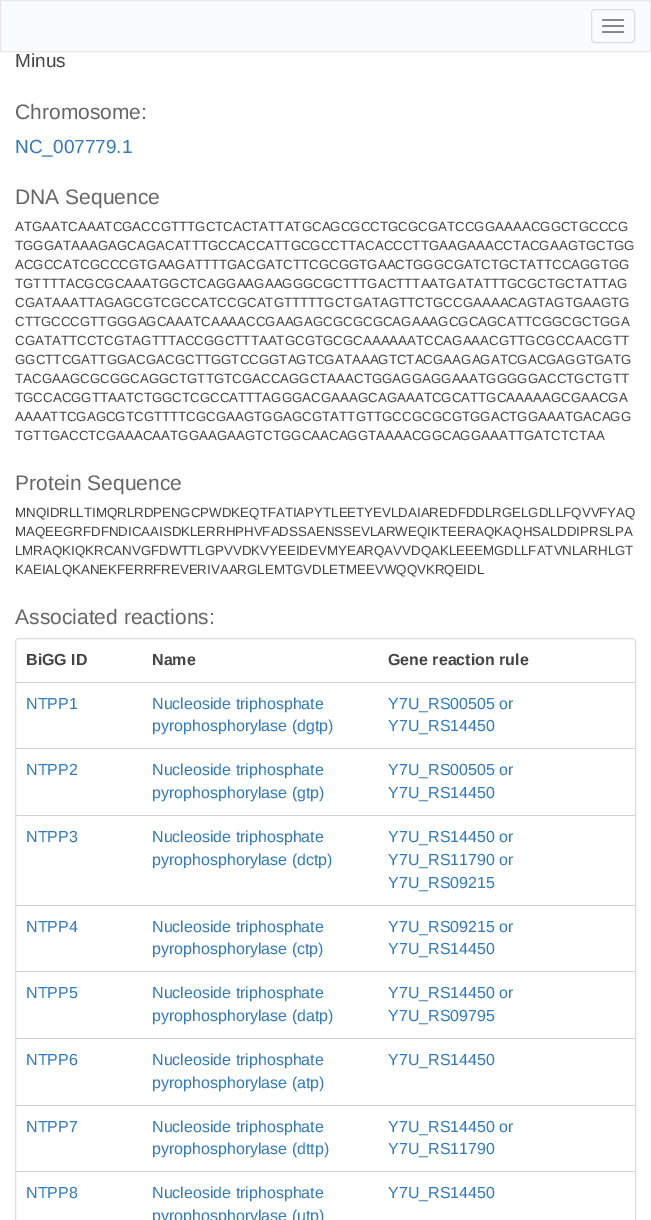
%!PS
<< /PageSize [651 1220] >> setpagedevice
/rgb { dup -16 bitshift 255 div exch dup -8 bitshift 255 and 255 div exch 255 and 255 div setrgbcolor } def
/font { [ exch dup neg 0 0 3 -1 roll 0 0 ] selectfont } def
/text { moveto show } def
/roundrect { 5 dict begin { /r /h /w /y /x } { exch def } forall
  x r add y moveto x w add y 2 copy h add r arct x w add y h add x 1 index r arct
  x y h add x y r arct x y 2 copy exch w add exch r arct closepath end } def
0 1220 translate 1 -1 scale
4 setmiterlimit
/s1 { /LiberationSans-Regular 19 font 16#444444 rgb } def
/s2 { /LiberationSans-Regular 21 font 16#666666 rgb } def
/s3 { /LiberationSans-Regular 19 font 16#337AB7 rgb } def
/s4 { /LiberationSans-Regular 13.3 font 16#444444 rgb } def
/s5 { /LiberationSans-Bold 16 font 16#444444 rgb } def
/s6 { /LiberationSans-Regular 16 font 16#337AB7 rgb } def
16#FFFFFF rgb
0 0 651 1220 rectfill
16#F9FCFF rgb
0.5 0.5 moveto 650.5 0.5 lineto 650.5 51.5 lineto 0.5 51.5 lineto closepath gsave fill grestore
16#E7E7E7 rgb
stroke
16#DDDDDD rgb
591.5 9.5 43 33 3.5 roundrect stroke
16#888888 rgb
602 19 22 2 1 roundrect fill
602 25 22 2 1 roundrect fill
602 31 22 2 1 roundrect fill
s1
(Minus) 15 67 text
s2
(Chromosome:) 15 119 text
s3
(NC_007779.1) 15 153 text
s2
(DNA Sequence) 15 204 text
s4
(ATGAATCAAATCGACCGTTTGCTCACTATTATGCAGCGCCTGCGCGATCCGGAAAACGGCTGCCCG) 15 231 text
(TGGGATAAAGAGCAGACATTTGCCACCATTGCGCCTTACACCCTTGAAGAAACCTACGAAGTGCTGG) 15 250 text
(ACGCCATCGCCCGTGAAGATTTTGACGATCTTCGCGGTGAACTGGGCGATCTGCTATTCCAGGTGG) 15 269 text
(TGTTTTACGCGCAAATGGCTCAGGAAGAAGGGCGCTTTGACTTTAATGATATTTGCGCTGCTATTAG) 15 288 text
(CGATAAATTAGAGCGTCGCCATCCGCATGTTTTTGCTGATAGTTCTGCCGAAAACAGTAGTGAAGTG) 15 307 text
(CTTGCCCGTTGGGAGCAAATCAAAACCGAAGAGCGCGCGCAGAAAGCGCAGCATTCGGCGCTGGA) 15 326 text
(CGATATTCCTCGTAGTTTACCGGCTTTAATGCGTGCGCAAAAAATCCAGAAACGTTGCGCCAACGTT) 15 345 text
(GGCTTCGATTGGACGACGCTTGGTCCGGTAGTCGATAAAGTCTACGAAGAGATCGACGAGGTGATG) 15 364 text
(TACGAAGCGCGGCAGGCTGTTGTCGACCAGGCTAAACTGGAGGAGGAAATGGGGGACCTGCTGTT) 15 383 text
(TGCCACGGTTAATCTGGCTCGCCATTTAGGGACGAAAGCAGAAATCGCATTGCAAAAAGCGAACGA) 15 402 text
(AAAATTCGAGCGTCGTTTTCGCGAAGTGGAGCGTATTGTTGCCGCGCGTGGACTGGAAATGACAGG) 15 421 text
(TGTTGACCTCGAAACAATGGAAGAAGTCTGGCAACAGGTAAAACGGCAGGAAATTGATCTCTAA) 15 440 text
s2
(Protein Sequence) 15 490 text
s4
(MNQIDRLLTIMQRLRDPENGCPWDKEQTFATIAPYTLEETYEVLDAIAREDFDDLRGELGDLLFQVVFYAQ) 15 517 text
(MAQEEGRFDFNDICAAISDKLERRHPHVFADSSAENSSEVLARWEQIKTEERAQKAQHSALDDIPRSLPA) 15 536 text
(LMRAQKIQKRCANVGFDWTTLGPVVDKVYEEIDEVMYEARQAVVDQAKLEEEMGDLLFATVNLARHLGT) 15 555 text
(KAEIALQKANEKFERRFREVERIVAARGLEMTGVDLETMEEVWQQVKRQEIDL) 15 574 text
s2
(Associated reactions:) 15 624 text
16#DDDDDD rgb
15.5 638.5 620 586 3.5 roundrect stroke
16#D1D1D1 rgb
16 682 619 1 rectfill
s5
(BiGG ID) 26 665 text
(Name) 152 665 text
(Gene reaction rule) 388 665 text
16#D1D1D1 rgb
16 748 619 1 rectfill
s6
(NTPP1) 26 709 text
(Nucleoside triphosphate) 152 709 text
(pyrophosphorylase \(dgtp\)) 152 731 text
(Y7U_RS00505 or) 388 709 text
(Y7U_RS14450) 388 731 text
16#D1D1D1 rgb
16 815 619 1 rectfill
s6
(NTPP2) 26 775 text
(Nucleoside triphosphate) 152 775 text
(pyrophosphorylase \(gtp\)) 152 798 text
(Y7U_RS00505 or) 388 775 text
(Y7U_RS14450) 388 798 text
16#D1D1D1 rgb
16 905 619 1 rectfill
s6
(NTPP3) 26 842 text
(Nucleoside triphosphate) 152 842 text
(pyrophosphorylase \(dctp\)) 152 865 text
(Y7U_RS14450 or) 388 842 text
(Y7U_RS11790 or) 388 865 text
(Y7U_RS09215) 388 888 text
16#D1D1D1 rgb
16 971 619 1 rectfill
s6
(NTPP4) 26 932 text
(Nucleoside triphosphate) 152 932 text
(pyrophosphorylase \(ctp\)) 152 954 text
(Y7U_RS09215 or) 388 932 text
(Y7U_RS14450) 388 954 text
16#D1D1D1 rgb
16 1038 619 1 rectfill
s6
(NTPP5) 26 998 text
(Nucleoside triphosphate) 152 998 text
(pyrophosphorylase \(datp\)) 152 1021 text
(Y7U_RS14450 or) 388 998 text
(Y7U_RS09795) 388 1021 text
16#D1D1D1 rgb
16 1105 619 1 rectfill
s6
(NTPP6) 26 1065 text
(Nucleoside triphosphate) 152 1065 text
(pyrophosphorylase \(atp\)) 152 1088 text
(Y7U_RS14450) 388 1065 text
16#D1D1D1 rgb
16 1171 619 1 rectfill
s6
(NTPP7) 26 1132 text
(Nucleoside triphosphate) 152 1132 text
(pyrophosphorylase \(dttp\)) 152 1154 text
(Y7U_RS14450 or) 388 1132 text
(Y7U_RS11790) 388 1154 text
(NTPP8) 26 1198 text
(Nucleoside triphosphate) 152 1198 text
(pyrophosphorylase \(utp\)) 152 1221 text
(Y7U_RS14450) 388 1198 text
showpage
